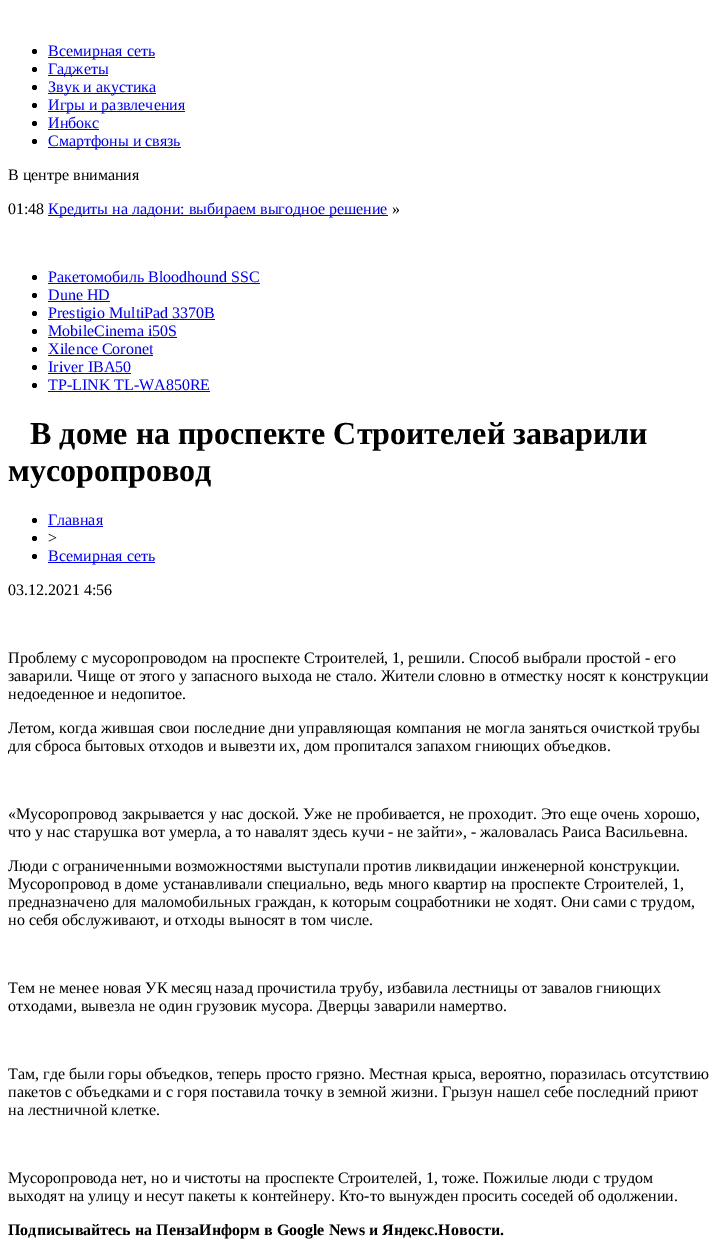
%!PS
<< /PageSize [719 1244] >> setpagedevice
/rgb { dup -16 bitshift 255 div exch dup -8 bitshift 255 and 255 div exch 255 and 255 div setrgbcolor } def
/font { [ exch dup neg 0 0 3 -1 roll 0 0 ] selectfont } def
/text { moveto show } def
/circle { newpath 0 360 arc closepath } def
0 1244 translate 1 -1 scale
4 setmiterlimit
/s1 { /LiberationSerif-Regular 16 font 16#0000EE rgb } def
/s2 { /LiberationSerif-Regular 16 font 16#000000 rgb } def
/s3 { /LiberationSerif-Bold 32 font 16#000000 rgb } def
/s4 { /LiberationSerif-Bold 16 font 16#000000 rgb } def
16#FFFFFF rgb
0 0 719 1244 rectfill
16#000000 rgb
34.5 51.5 2.5 circle fill
16#0000EE rgb
48 57 107 1 rectfill
s1
(Всемирная сеть) 48 56 text
16#000000 rgb
34.5 69.5 2.5 circle fill
16#0000EE rgb
48 75 60 1 rectfill
(Гаджеты) 48 74 text
16#000000 rgb
34.5 87.5 2.5 circle fill
16#0000EE rgb
48 93 108 1 rectfill
(Звук и акустика) 48 92 text
16#000000 rgb
34.5 105.5 2.5 circle fill
16#0000EE rgb
48 111 137 1 rectfill
(Игры и развлечения) 48 110 text
16#000000 rgb
34.5 123.5 2.5 circle fill
s1
(Инбокс) 48 128 text
48 129 51 1 rectfill
16#000000 rgb
34.5 141.5 2.5 circle fill
16#0000EE rgb
48 147 133 1 rectfill
(Смартфоны и связь) 48 146 text
s2
(В центре внимания) 8 180 text
(01:48) 8 214 text
16#0000EE rgb
48 215 340 1 rectfill
(Кредиты на ладони: выбираем выгодное решение) 48 214 text
s2
(») 392 214 text
34.5 277.5 2.5 circle fill
s1
(Ракетомобиль Bloodhound SSC) 48 282 text
48 283 212 1 rectfill
16#000000 rgb
34.5 295.5 2.5 circle fill
s1
(Dune HD) 48 300 text
48 301 62 1 rectfill
16#000000 rgb
34.5 313.5 2.5 circle fill
16#0000EE rgb
48 319 167 1 rectfill
(Prestigio MultiPad 3370B) 48 318 text
16#000000 rgb
34.5 331.5 2.5 circle fill
s1
(MobileCinema i50S) 48 336 text
48 337 129 1 rectfill
16#000000 rgb
34.5 349.5 2.5 circle fill
s1
(Xilence Coronet) 48 354 text
48 355 105 1 rectfill
16#000000 rgb
34.5 367.5 2.5 circle fill
s1
(Iriver IBA50) 48 372 text
48 373 83 1 rectfill
16#000000 rgb
34.5 385.5 2.5 circle fill
s1
(TP-LINK TL-WA850RE) 48 390 text
48 391 162 1 rectfill
s3
(В доме на проспекте Строителей заварили) 30 444 text
(мусоропровод) 8 481 text
34.5 520.5 2.5 circle fill
s1
(Главная) 48 525 text
48 526 55 1 rectfill
16#000000 rgb
34.5 538.5 2.5 circle fill
(>) 48 543 text
34.5 556.5 2.5 circle fill
16#0000EE rgb
48 562 107 1 rectfill
(Всемирная сеть) 48 561 text
s2
(03.12.2021 4:56) 8 595 text
(Проблему с мусоропроводом на проспекте Строителей, 1, решили. Способ выбрали простой - его) 8 663 text
(заварили. Чище от этого у запасного выхода не стало. Жители словно в отместку носят к конструкции) 8 681 text
(недоеденное и недопитое.) 8 699 text
(Летом, когда жившая свои последние дни управляющая компания не могла заняться очисткой трубы) 8 733 text
(для сброса бытовых отходов и вывезти их, дом пропитался запахом гниющих объедков.) 8 751 text
(«Мусоропровод закрывается у нас доской. Уже не пробивается, не проходит. Это еще очень хорошо,) 8 819 text
(что у нас старушка вот умерла, а то навалят здесь кучи - не зайти», - жаловалась Раиса Васильевна.) 8 837 text
(Люди с ограниченными возможностями выступали против ликвидации инженерной конструкции.) 8 871 text
(Мусоропровод в доме устанавливали специально, ведь много квартир на проспекте Строителей, 1,) 8 889 text
(предназначено для маломобильных граждан, к которым соцработники не ходят. Они сами с трудом,) 8 907 text
(но себя обслуживают, и отходы выносят в том числе.) 8 925 text
(Тем не менее новая УК месяц назад прочистила трубу, избавила лестницы от завалов гниющих) 8 993 text
(отходами, вывезла не один грузовик мусора. Дверцы заварили намертво.) 8 1011 text
(Там, где были горы объедков, теперь просто грязно. Местная крыса, вероятно, поразилась отсутствию) 8 1079 text
(пакетов с объедками и с горя поставила точку в земной жизни. Грызун нашел себе последний приют) 8 1097 text
(на лестничной клетке.) 8 1115 text
(Мусоропровода нет, но и чистоты на проспекте Строителей, 1, тоже. Пожилые люди с трудом) 8 1183 text
(выходят на улицу и несут пакеты к контейнеру. Кто-то вынужден просить соседей об одолжении.) 8 1201 text
s4
(Подписывайтесь на ПензаИнформ в Google News и Яндекс.Новости.) 8 1235 text
showpage
